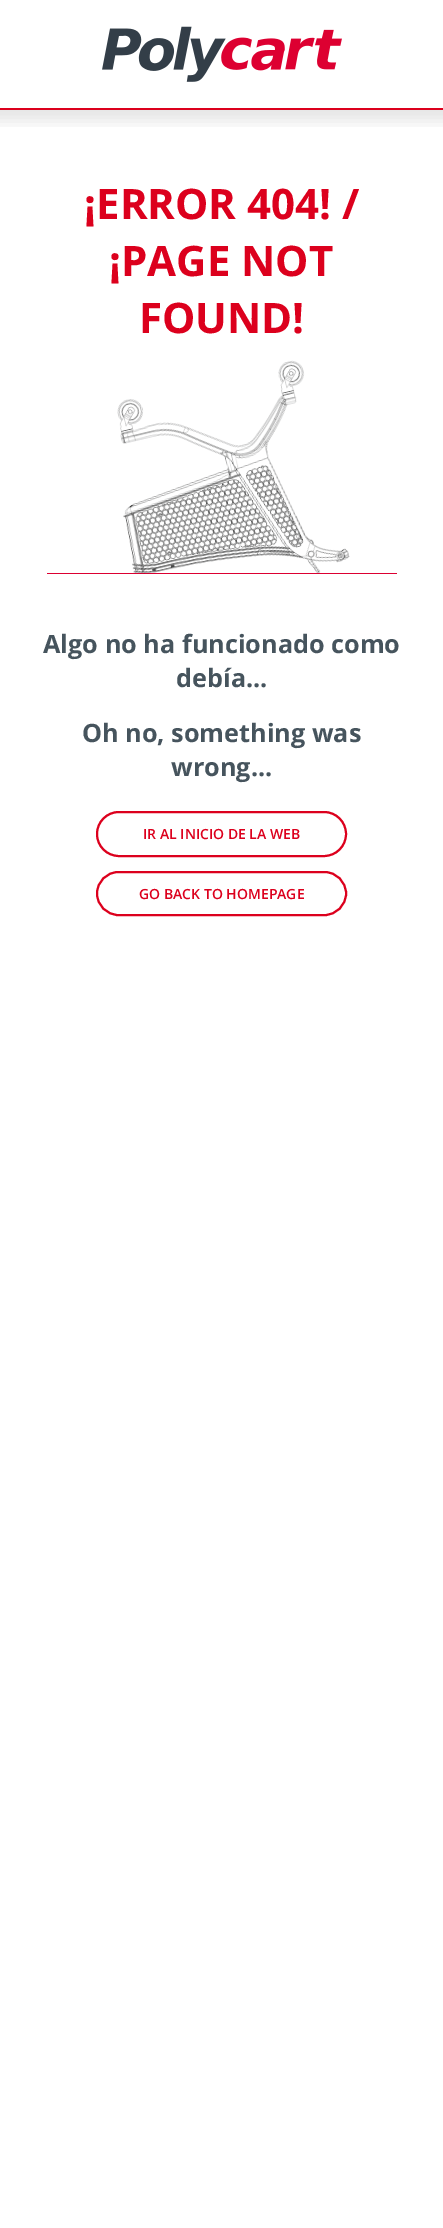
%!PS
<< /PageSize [443 2228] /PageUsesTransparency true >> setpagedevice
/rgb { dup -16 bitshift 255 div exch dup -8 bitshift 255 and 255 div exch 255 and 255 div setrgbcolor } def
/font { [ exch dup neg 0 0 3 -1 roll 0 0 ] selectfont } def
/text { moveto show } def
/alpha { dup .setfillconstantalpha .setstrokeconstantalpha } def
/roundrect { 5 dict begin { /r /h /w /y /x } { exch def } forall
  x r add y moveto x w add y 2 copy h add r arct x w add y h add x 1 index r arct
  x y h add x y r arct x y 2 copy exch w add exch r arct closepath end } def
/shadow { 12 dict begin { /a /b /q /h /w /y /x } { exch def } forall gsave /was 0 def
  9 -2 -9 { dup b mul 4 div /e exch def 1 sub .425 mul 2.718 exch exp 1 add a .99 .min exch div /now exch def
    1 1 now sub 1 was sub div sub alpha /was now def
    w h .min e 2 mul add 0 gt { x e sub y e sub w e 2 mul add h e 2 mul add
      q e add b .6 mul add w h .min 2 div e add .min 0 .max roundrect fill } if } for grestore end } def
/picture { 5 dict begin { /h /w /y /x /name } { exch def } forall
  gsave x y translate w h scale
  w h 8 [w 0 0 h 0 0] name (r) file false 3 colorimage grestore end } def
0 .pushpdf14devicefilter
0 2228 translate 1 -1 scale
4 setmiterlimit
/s1 { /OpenSans-Bold 42 font 16#DC001D rgb } def
/s2 { /OpenSans-Bold 25.25 font 16#46545D rgb } def
/s3 { /OpenSans-SemiBold 14 font 16#DC001D rgb } def
16#FFFFFF rgb
0 0 443 2228 rectfill
gsave
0 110 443 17 rectclip
16#000000 rgb
-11 -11 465 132 0 7.5 0.1 shadow
grestore
16#DC001D rgb
0 108 443 2 rectfill
(pic1.raw) 102 26 240 56 picture
s1
(¡ERROR 404! /) 84 219 text
(¡PAGE NOT) 109 276 text
(FOUND!) 139 333 text
(pic2.raw) 47 360 350 214 picture
s2
(Algo no ha funcionado como) 43 653 text
(debía...) 176 687 text
(Oh no, something was) 82 742 text
(wrong...) 171 776 text
16#DC001D rgb
2 setlinewidth
97 812 249 44 22 roundrect stroke
s3
(IR AL INICIO DE LA WEB) 143 839 text
97 872 249 43 21.5 roundrect stroke
(GO BACK TO HOMEPAGE) 139 899 text
.poppdf14devicefilter showpage
